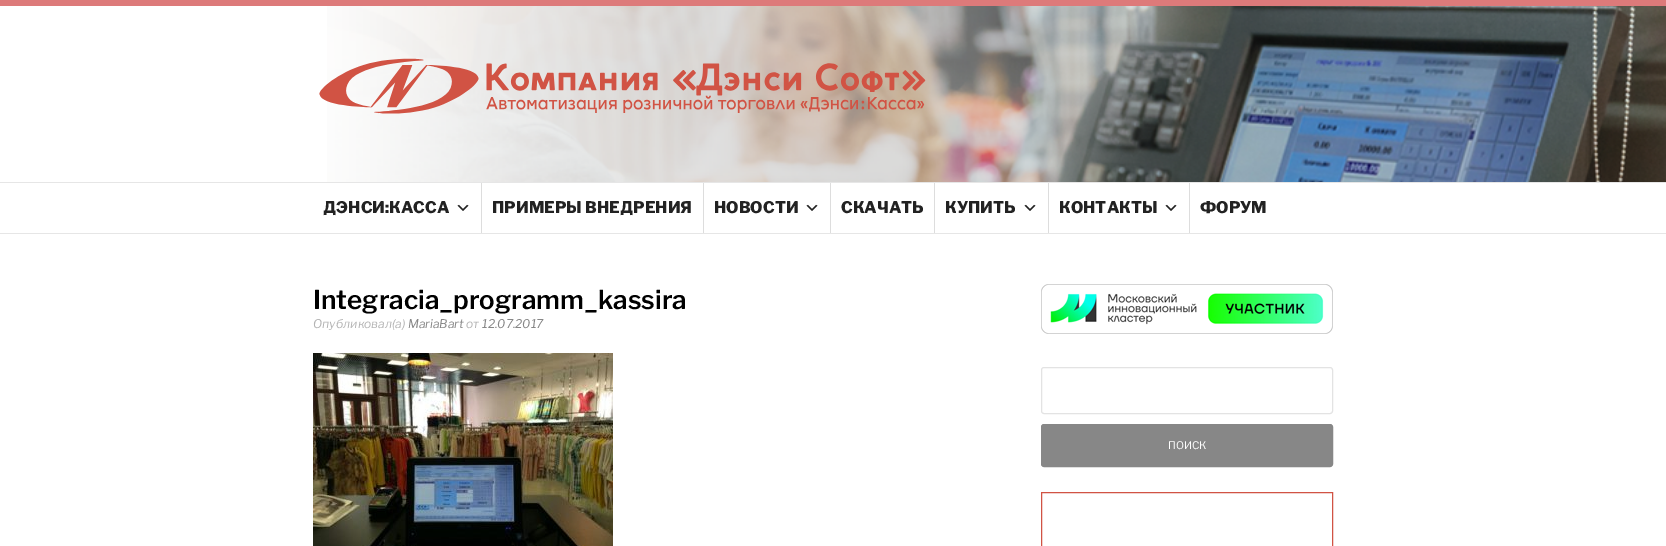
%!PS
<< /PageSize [1666 546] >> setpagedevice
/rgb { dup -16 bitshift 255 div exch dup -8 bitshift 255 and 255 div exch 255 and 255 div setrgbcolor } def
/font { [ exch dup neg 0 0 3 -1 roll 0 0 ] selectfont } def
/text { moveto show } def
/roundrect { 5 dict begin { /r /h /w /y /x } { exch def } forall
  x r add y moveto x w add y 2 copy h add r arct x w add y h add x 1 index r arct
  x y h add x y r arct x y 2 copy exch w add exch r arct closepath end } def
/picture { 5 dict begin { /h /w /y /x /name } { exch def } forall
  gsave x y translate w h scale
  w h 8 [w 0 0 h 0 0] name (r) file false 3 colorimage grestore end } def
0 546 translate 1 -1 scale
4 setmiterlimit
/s1 { /LibreFranklin-ExtraBold 16 font 16#222222 rgb } def
/s2 { /LibreFranklin-SemiBold 26 font 16#000000 rgb } def
/s3 { /LibreFranklin-Italic 12 font 16#B4B4B4 rgb } def
/s4 { /LibreFranklin-Italic 12 font 16#878787 rgb } def
/s5 { /LibreFranklin-Regular 10.5 font 16#FFFFFF rgb } def
16#FFFFFF rgb
0 0 1666 546 rectfill
16#DD7A7A rgb
0 0 1666 6 rectfill
(pic1.raw) 327 6 1339 176 picture
(pic2.raw) 319 58 607 56 picture
16#E6E6E6 rgb
0 182 1666 1 rectfill
0 233 1666 1 rectfill
s1
(ДЭНСИ:КАССА) 323 213 text
(pic3.raw) 457 204 12 7 picture
16#DDDDDD rgb
481 183 1 50 rectfill
s1
(ПРИМЕРЫ ВНЕДРЕНИЯ) 492 213 text
16#DDDDDD rgb
703 183 1 50 rectfill
s1
(НОВОСТИ) 714 213 text
(pic3.raw) 806 204 12 7 picture
16#DDDDDD rgb
830 183 1 50 rectfill
s1
(СКАЧАТЬ) 841 213 text
16#DDDDDD rgb
934 183 1 50 rectfill
s1
(КУПИТЬ) 945 213 text
(pic3.raw) 1024 204 12 7 picture
16#DDDDDD rgb
1048 183 1 50 rectfill
s1
(КОНТАКТЫ) 1059 213 text
(pic3.raw) 1165 204 12 7 picture
16#DDDDDD rgb
1189 183 1 50 rectfill
s1
(ФОРУМ) 1200 213 text
s2
(Integracia_programm_kassira) 313 309 text
s3
(Опубликовал\(а\)) 313 328 text
s4
(MariaBart) 408 328 text
s3
(от) 466 328 text
s4
(12.07.2017) 482 328 text
(pic4.raw) 313 353 300 193 picture
(pic5.raw) 1041 284 292 50 picture
16#E3E3E3 rgb
1041.5 367.5 291 46 2.5 roundrect stroke
16#878787 rgb
1041.5 424.5 291 42 2.5 roundrect gsave fill grestore
stroke
s5
(ПОИСК) 1168 449 text
16#D15344 rgb
1041.5 492.5 291 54 rectstroke
showpage
